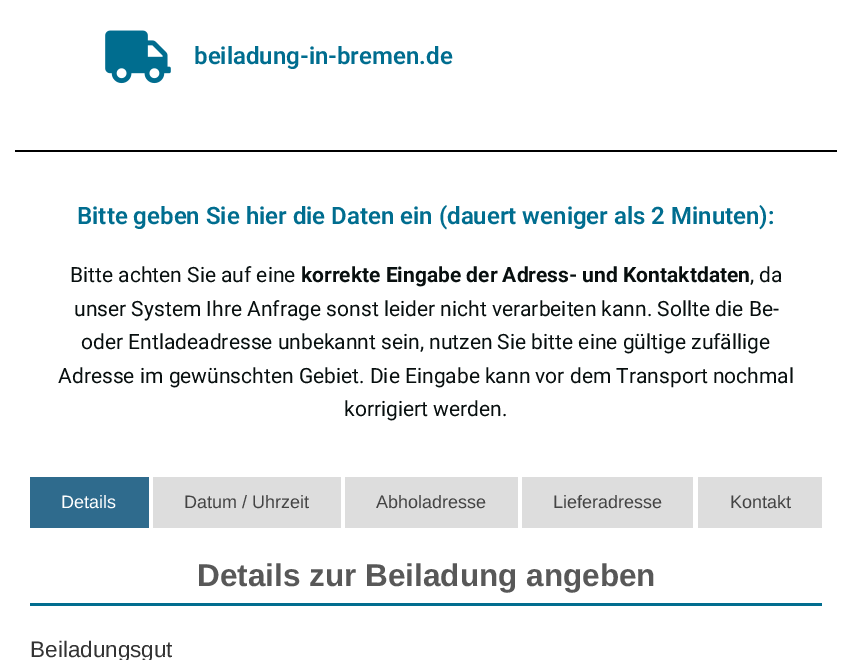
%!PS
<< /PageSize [851 660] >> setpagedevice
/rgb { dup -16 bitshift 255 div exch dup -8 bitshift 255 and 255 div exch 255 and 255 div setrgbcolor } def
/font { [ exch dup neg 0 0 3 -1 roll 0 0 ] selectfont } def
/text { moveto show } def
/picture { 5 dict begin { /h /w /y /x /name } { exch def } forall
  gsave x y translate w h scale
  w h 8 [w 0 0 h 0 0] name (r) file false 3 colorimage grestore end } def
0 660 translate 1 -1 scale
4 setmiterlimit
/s1 { /Roboto-SemiBold 24 font 16#006D8F rgb } def
/s2 { /Roboto-Regular 21 font 16#080F0F rgb } def
/s3 { /Roboto-Bold 21 font 16#080F0F rgb } def
/s4 { /LiberationSans-Regular 18 font 16#FFFFFF rgb } def
/s5 { /LiberationSans-Regular 18 font 16#444444 rgb } def
/s6 { /LiberationSans-Bold 31.5 font 16#585858 rgb } def
/s7 { /LiberationSans-Regular 22.5 font 16#333333 rgb } def
16#FFFFFF rgb
0 0 851 660 rectfill
(pic1.raw) 105 30 66 54 picture
s1
(beiladung-in-bremen.de) 194 64 text
16#000000 rgb
15 150 822 2 rectfill
s1
(Bitte geben Sie hier die Daten ein \(dauert weniger als 2 Minuten\):) 77 224 text
s2
(Bitte achten Sie auf eine) 70 282 text
s3
(korrekte Eingabe der Adress- und Kontaktdaten) 301 282 text
s2
(, da) 750 282 text
(unser System Ihre Anfrage sonst leider nicht verarbeiten kann. Sollte die Be-) 74 316 text
(oder Entladeadresse unbekannt sein, nutzen Sie bitte eine gültige zufällige) 81 349 text
(Adresse im gewünschten Gebiet. Die Eingabe kann vor dem Transport nochmal) 58 383 text
(korrigiert werden.) 344 416 text
16#2F6B8D rgb
30 477 119 51 rectfill
s4
(Details) 61 508 text
16#DDDDDD rgb
153 477 188 51 rectfill
s5
(Datum / Uhrzeit) 184 508 text
16#DDDDDD rgb
345 477 173 51 rectfill
s5
(Abholadresse) 376 508 text
16#DDDDDD rgb
522 477 171 51 rectfill
s5
(Lieferadresse) 553 508 text
16#DDDDDD rgb
698 477 124 51 rectfill
s5
(Kontakt) 730 508 text
16#016D8F rgb
30 603 792 3 rectfill
s6
(Details zur Beiladung angeben) 197 586 text
s7
(Beiladungsgut) 30 657 text
showpage
